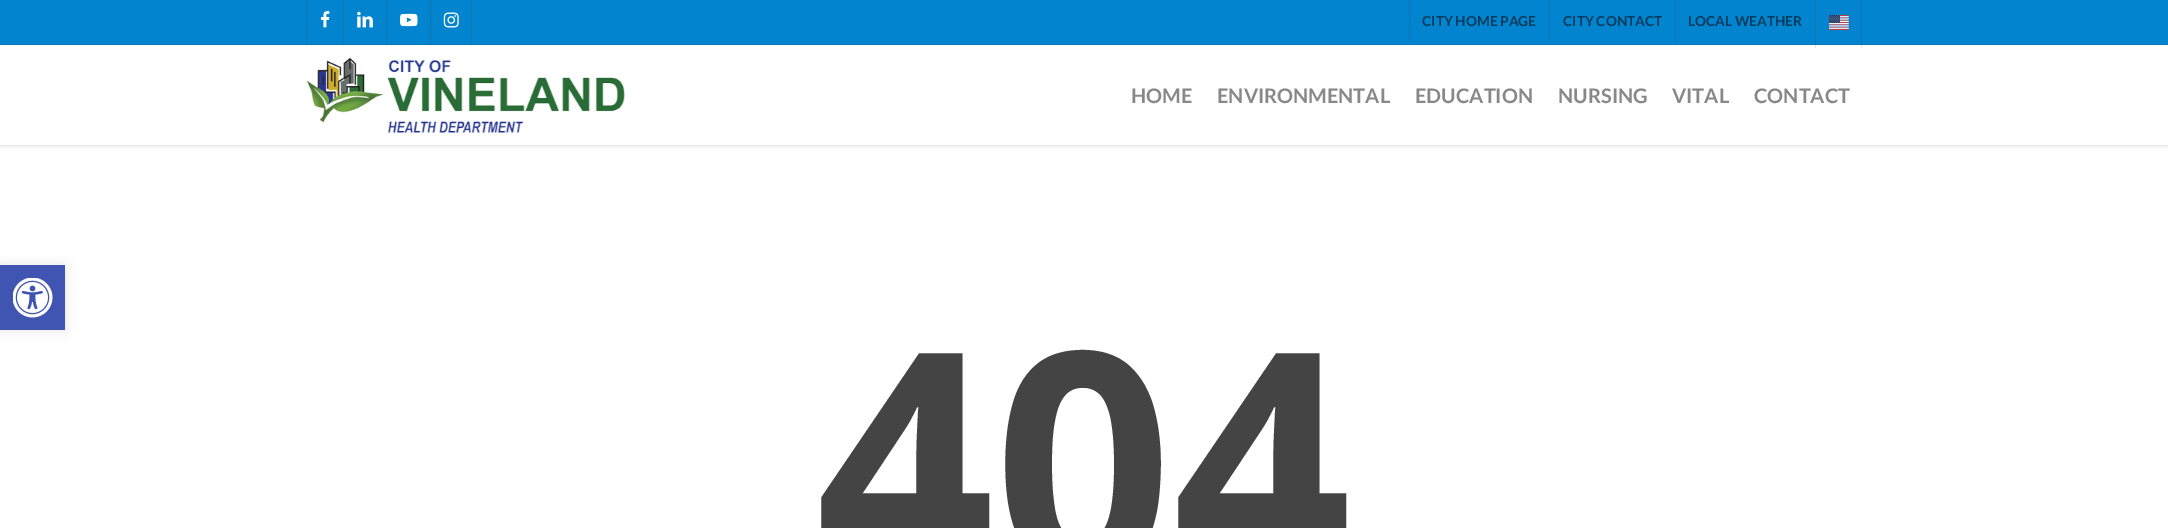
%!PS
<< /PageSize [2168 528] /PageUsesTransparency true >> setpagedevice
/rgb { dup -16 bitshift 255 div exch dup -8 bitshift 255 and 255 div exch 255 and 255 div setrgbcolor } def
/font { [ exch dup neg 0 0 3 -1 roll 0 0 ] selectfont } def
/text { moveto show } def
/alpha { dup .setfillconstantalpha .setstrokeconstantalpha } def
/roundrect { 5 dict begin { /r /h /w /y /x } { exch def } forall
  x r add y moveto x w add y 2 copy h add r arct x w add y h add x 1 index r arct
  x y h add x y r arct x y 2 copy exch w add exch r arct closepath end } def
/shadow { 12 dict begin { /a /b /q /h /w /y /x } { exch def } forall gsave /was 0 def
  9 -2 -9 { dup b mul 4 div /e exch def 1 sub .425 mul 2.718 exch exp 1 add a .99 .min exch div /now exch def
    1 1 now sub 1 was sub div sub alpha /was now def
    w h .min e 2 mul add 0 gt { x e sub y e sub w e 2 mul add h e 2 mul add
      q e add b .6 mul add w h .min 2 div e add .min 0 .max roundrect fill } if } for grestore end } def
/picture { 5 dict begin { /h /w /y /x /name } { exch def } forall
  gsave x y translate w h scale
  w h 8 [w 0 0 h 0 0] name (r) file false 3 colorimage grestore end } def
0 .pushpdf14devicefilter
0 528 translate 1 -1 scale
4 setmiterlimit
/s1 { /Lato-Bold 13.75 font 16#013B5D rgb } def
/s2 { /Lato-Bold 20 font 16#888888 rgb } def
/s3 { /OpenSans-Bold 312 font 16#444444 rgb } def
16#FFFFFF rgb
0 0 2168 528 rectfill
16#E6E6E6 rgb
1815 45 1 3 rectfill
1861 45 1 3 rectfill
gsave
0 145 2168 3 rectclip
16#000000 rgb
0 0 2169 145 0 2 0.22 shadow
grestore
16#0384CE rgb
0 0 2168 44 rectfill
16#0377B9 rgb
430 0 1 45 rectfill
386 0 1 45 rectfill
343 0 1 45 rectfill
306 0 1 45 rectfill
471 0 1 45 rectfill
1815 0 1 45 rectfill
1861 0 1 45 rectfill
0 44 2168 1 rectfill
16#036BA7 rgb
430 44 1 1 rectfill
386 44 1 1 rectfill
343 44 1 1 rectfill
306 44 1 1 rectfill
471 44 1 1 rectfill
1815 44 1 1 rectfill
1861 44 1 1 rectfill
(pic1.raw) 320 11 10 17 picture
(pic2.raw) 357 11 16 17 picture
(pic3.raw) 400 13 18 14 picture
(pic4.raw) 443 12 16 16 picture
16#0377B9 rgb
1409 0 1 41 rectfill
s1
(CITY HOME PAGE) 1422 26 text
16#0377B9 rgb
1549 0 1 41 rectfill
s1
(CITY CONTACT) 1563 26 text
16#0377B9 rgb
1675 0 1 41 rectfill
s1
(LOCAL WEATHER) 1688 26 text
(pic5.raw) 1829 15 20 15 picture
(pic6.raw) 306 57 319 76 picture
s2
(HOME) 1131 103 text
(ENVIRONMENTAL) 1217 103 text
(EDUCATION) 1415 103 text
(NURSING) 1558 103 text
(VITAL) 1672 103 text
(CONTACT) 1754 103 text
16#000000 rgb
0 265 65 65 0 6 0.1 shadow
16#4054B2 rgb
0 265 65 65 rectfill
(pic7.raw) 13 278 40 40 picture
s3
(404) 816 576 text
.poppdf14devicefilter showpage
